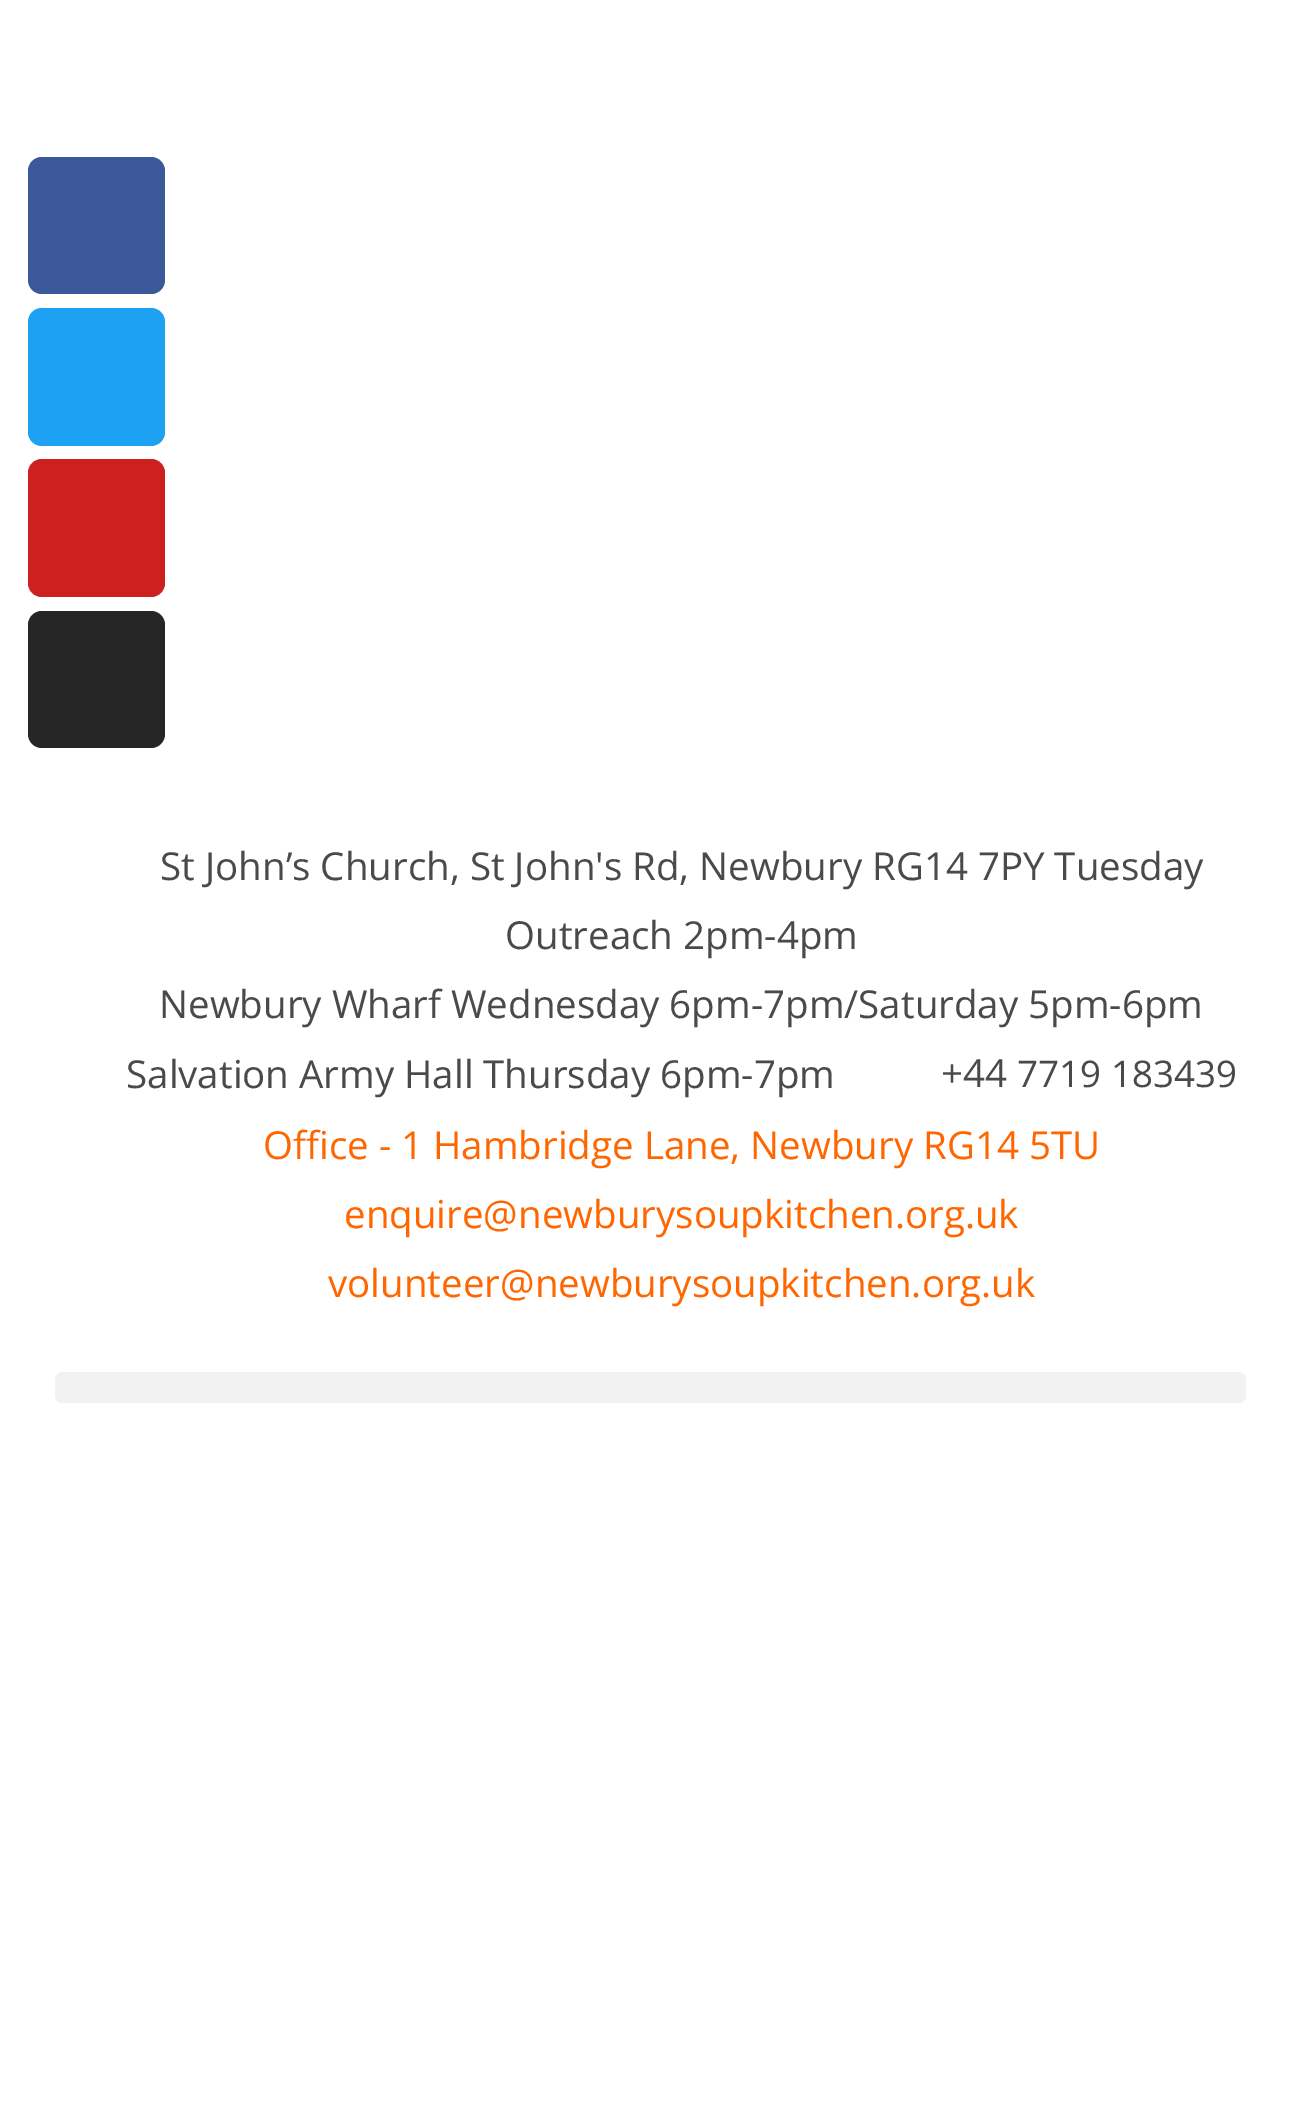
%!PS
<< /PageSize [1300 2118] >> setpagedevice
/rgb { dup -16 bitshift 255 div exch dup -8 bitshift 255 and 255 div exch 255 and 255 div setrgbcolor } def
/font { [ exch dup neg 0 0 3 -1 roll 0 0 ] selectfont } def
/text { moveto show } def
/roundrect { 5 dict begin { /r /h /w /y /x } { exch def } forall
  x r add y moveto x w add y 2 copy h add r arct x w add y h add x 1 index r arct
  x y h add x y r arct x y 2 copy exch w add exch r arct closepath end } def
0 2118 translate 1 -1 scale
4 setmiterlimit
/s1 { /OpenSans-Regular 38.5 font 16#4A4A4A rgb } def
/s2 { /OpenSans-Regular 36.75 font 16#4A4A4A rgb } def
/s3 { /OpenSans-Regular 38.5 font 16#FF6600 rgb } def
16#FFFFFF rgb
0 0 1300 2118 rectfill
16#3B5998 rgb
28 157 137 137 14 roundrect fill
16#1DA1F2 rgb
28 308 137 138 14 roundrect fill
16#CD201F rgb
28 459 137 138 14 roundrect fill
16#262626 rgb
28 611 137 137 14 roundrect fill
s1
(St John’s Church, St John's Rd, Newbury RG14 7PY Tuesday) 160 880 text
(Outreach 2pm-4pm) 505 949 text
(Newbury Wharf Wednesday 6pm-7pm/Saturday 5pm-6pm) 159 1018 text
(Salvation Army Hall Thursday 6pm-7pm) 126 1088 text
(+44) 941 1087 text
s2
(7719 183439) 1017 1087 text
s3
(Office - 1 Hambridge Lane, Newbury RG14 5TU) 263 1159 text
(enquire@newburysoupkitchen.org.uk) 344 1228 text
(volunteer@newburysoupkitchen.org.uk) 328 1297 text
16#F2F2F2 rgb
55 1372 1191 31 8 roundrect fill
showpage
